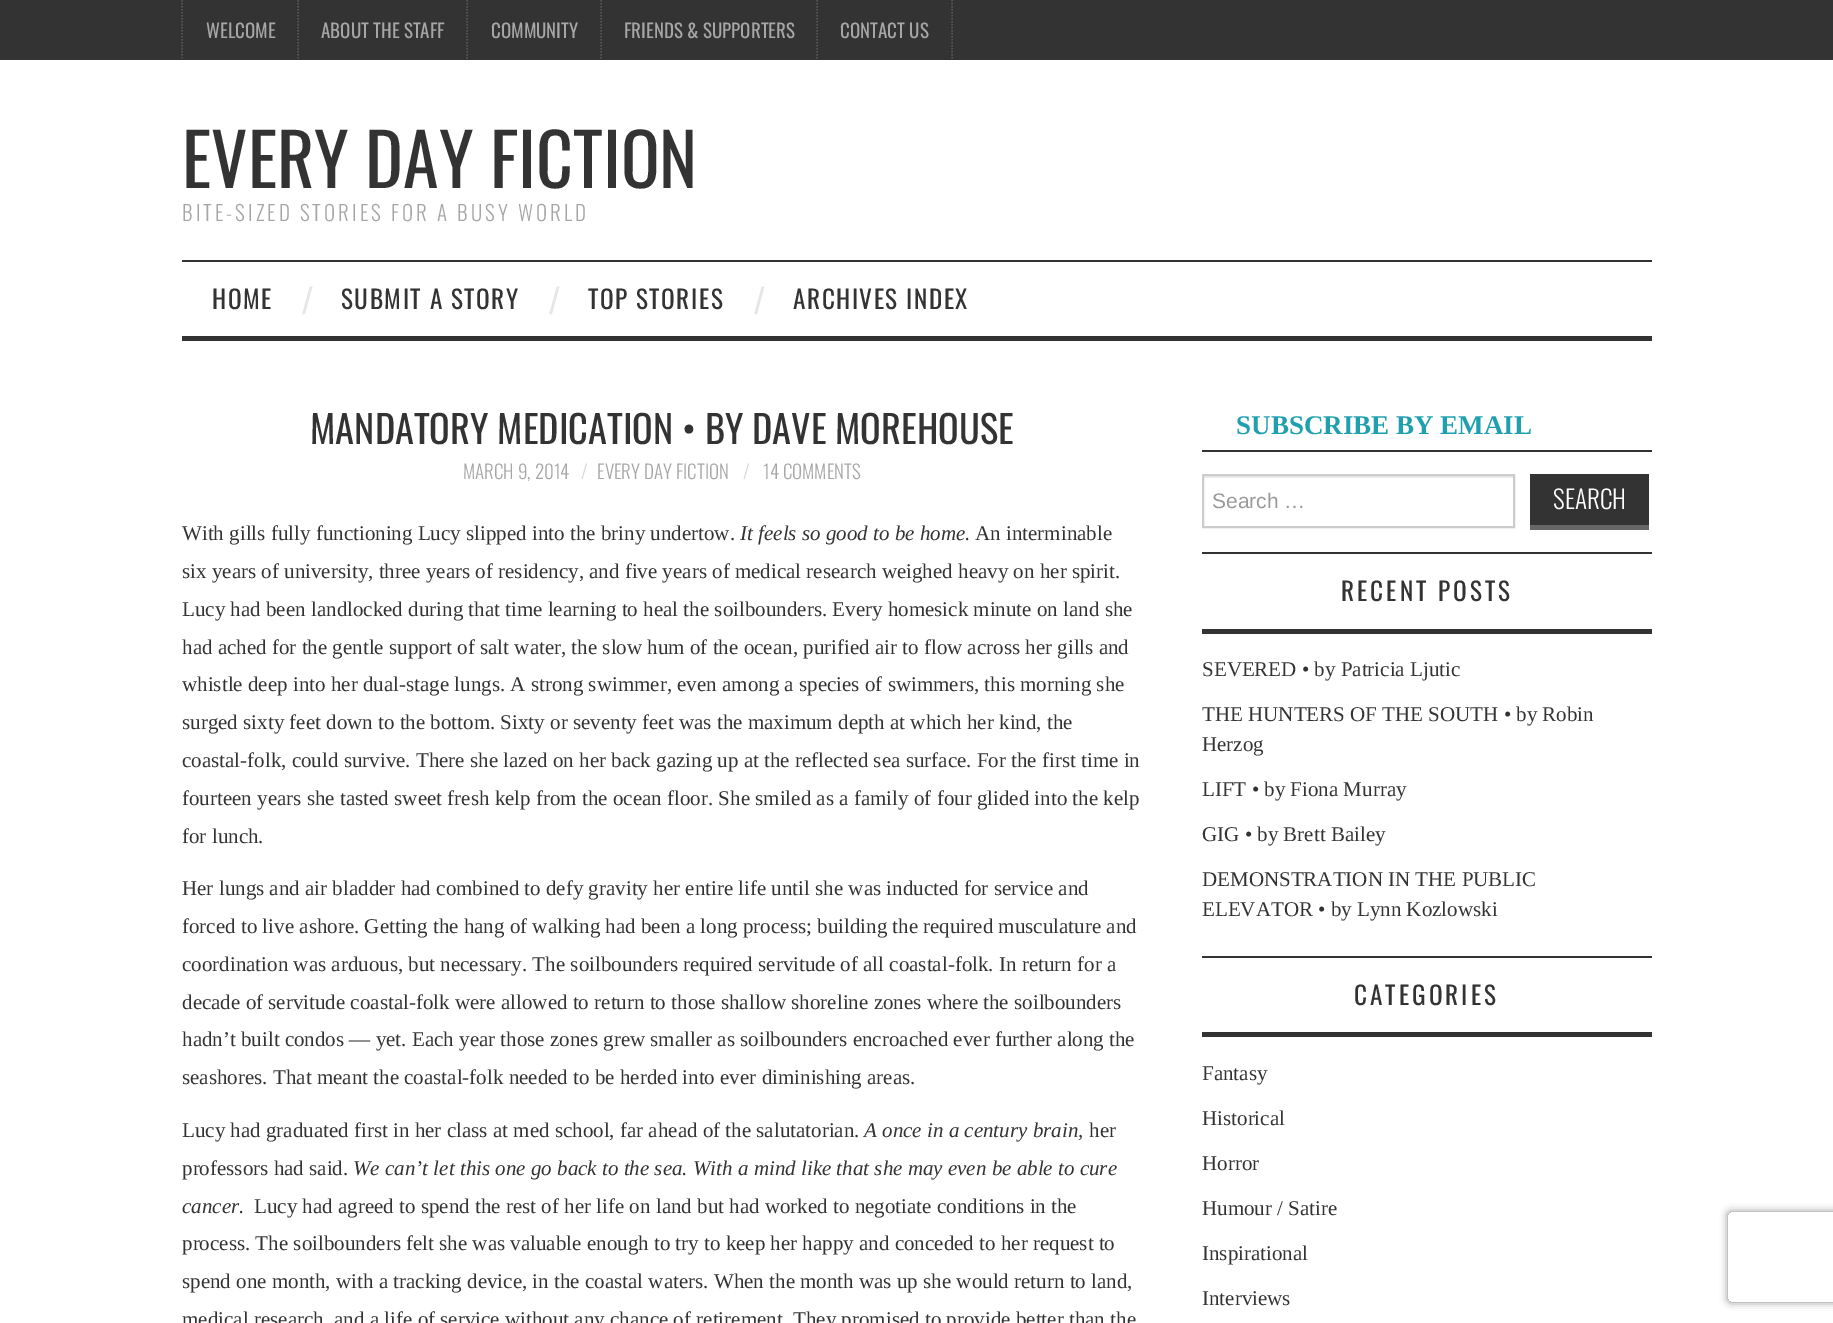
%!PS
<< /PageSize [1833 1323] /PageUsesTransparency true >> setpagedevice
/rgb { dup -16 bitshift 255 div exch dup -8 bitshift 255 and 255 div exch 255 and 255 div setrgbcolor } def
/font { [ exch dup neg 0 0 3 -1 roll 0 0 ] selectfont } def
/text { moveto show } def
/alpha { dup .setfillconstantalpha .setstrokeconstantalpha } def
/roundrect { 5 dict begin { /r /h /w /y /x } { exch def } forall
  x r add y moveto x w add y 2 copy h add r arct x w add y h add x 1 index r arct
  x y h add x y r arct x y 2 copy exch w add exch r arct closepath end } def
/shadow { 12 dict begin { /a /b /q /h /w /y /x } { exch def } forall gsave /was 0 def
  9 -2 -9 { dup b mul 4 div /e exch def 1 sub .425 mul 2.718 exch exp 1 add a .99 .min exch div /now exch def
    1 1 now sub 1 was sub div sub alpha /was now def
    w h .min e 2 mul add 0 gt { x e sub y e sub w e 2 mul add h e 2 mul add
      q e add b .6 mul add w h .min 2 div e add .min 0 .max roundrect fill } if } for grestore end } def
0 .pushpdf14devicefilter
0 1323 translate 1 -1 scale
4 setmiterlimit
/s1 { /Oswald-Regular 19 font 16#A6A6A6 rgb } def
/s2 { /Oswald-Regular 72 font 16#333333 rgb } def
/s3 { /LiberationSans-Regular 38 font 16#E6E6E6 rgb } def
/s4 { /Oswald-Regular 38.4 font 16#333333 rgb } def
/s5 { /Oswald-Light 19 font 16#A6A6A6 rgb } def
/s6 { /Oswald-Light 19 font 16#D6D6D6 rgb } def
/s7 { /LiberationSerif-Regular 21 font 16#333333 rgb } def
/s8 { /LiberationSerif-Italic 21 font 16#333333 rgb } def
/s9 { /LiberationSerif-Bold 27 font 16#1FA0AE rgb } def
/s10 { /LiberationSans-Regular 21 font 16#999999 rgb } def
/s11 { /Oswald-Light 25.25 font 16#FFFFFF rgb } def
16#FFFFFF rgb
0 0 1833 1323 rectfill
16#333333 rgb
0 0 1833 60 rectfill
16#565656 rgb
1.5 setlinewidth
[1.5 1.5] 0 setdash
182 0 moveto 182 60 lineto stroke
298 0 moveto 298 60 lineto stroke
s1
(WELCOME) 206 38 text
16#565656 rgb
467 0 moveto 467 60 lineto stroke
s1
(ABOUT THE STAFF) 321 38 text
16#565656 rgb
601 0 moveto 601 60 lineto stroke
s1
(COMMUNITY) 491 38 text
16#565656 rgb
817 0 moveto 817 60 lineto stroke
s1
(FRIENDS & SUPPORTERS) 624 38 text
16#565656 rgb
952 0 moveto 952 60 lineto stroke
s1
(CONTACT US) 840 38 text
s2
(EVERY DAY FICTION) 182 188 text
/Oswald-Light 21 font
16#A6A6A6 rgb
182 221 moveto 3 0 (BITE-SIZED STORIES FOR A BUSY WORLD) ashow
16#333333 rgb
182 260 1470 2 rectfill
182 336 1470 5 rectfill
/Oswald-Regular 25.25 font
212 309 moveto 1.5 0 (HOME) ashow
s3
(/) 302 314 text
/Oswald-Regular 25.25 font
16#333333 rgb
341 309 moveto 1.5 0 (SUBMIT A STORY) ashow
s3
(/) 549 314 text
/Oswald-Regular 25.25 font
16#333333 rgb
588 309 moveto 1.5 0 (TOP STORIES) ashow
s3
(/) 754 314 text
/Oswald-Regular 25.25 font
16#333333 rgb
793 309 moveto 1.5 0 (ARCHIVES INDEX) ashow
s4
(MANDATORY MEDICATION • BY DAVE MOREHOUSE) 310 444 text
s5
(MARCH 9, 2014) 463 479 text
s6
(/) 581 479 text
s5
(EVERY DAY FICTION) 597 479 text
s6
(/) 743 479 text
s5
(14 COMMENTS) 763 479 text
s7
(With gills fully functioning Lucy slipped into the briny undertow.) 182 540 text
s8
(It feels so good to be home.) 740 540 text
s7
(An interminable) 975 540 text
(six years of university, three years of residency, and five years of medical research weighed heavy on her spirit.) 182 578 text
(Lucy had been landlocked during that time learning to heal the soilbounders. Every homesick minute on land she) 182 616 text
(had ached for the gentle support of salt water, the slow hum of the ocean, purified air to flow across her gills and) 182 654 text
(whistle deep into her dual-stage lungs. A strong swimmer, even among a species of swimmers, this morning she) 182 691 text
(surged sixty feet down to the bottom. Sixty or seventy feet was the maximum depth at which her kind, the) 182 729 text
(coastal-folk, could survive. There she lazed on her back gazing up at the reflected sea surface. For the first time in) 182 767 text
(fourteen years she tasted sweet fresh kelp from the ocean floor. She smiled as a family of four glided into the kelp) 182 805 text
(for lunch.) 182 843 text
(Her lungs and air bladder had combined to defy gravity her entire life until she was inducted for service and) 182 895 text
(forced to live ashore. Getting the hang of walking had been a long process; building the required musculature and) 182 933 text
(coordination was arduous, but necessary. The soilbounders required servitude of all coastal-folk. In return for a) 182 971 text
(decade of servitude coastal-folk were allowed to return to those shallow shoreline zones where the soilbounders) 182 1009 text
(hadn’t built condos — yet. Each year those zones grew smaller as soilbounders encroached ever further along the) 182 1046 text
(seashores. That meant the coastal-folk needed to be herded into ever diminishing areas.) 182 1084 text
(Lucy had graduated first in her class at med school, far ahead of the salutatorian.) 182 1137 text
s8
(A once in a century brain,) 864 1137 text
s7
(her) 1089 1137 text
(professors had said.) 182 1175 text
s8
(We can’t let this one go back to the sea. With a mind like that she may even be able to cure) 353 1175 text
(cancer.) 182 1213 text
s7
(Lucy had agreed to spend the rest of her life on land but had worked to negotiate conditions in the) 254 1213 text
(process. The soilbounders felt she was valuable enough to try to keep her happy and conceded to her request to) 182 1250 text
(spend one month, with a tracking device, in the coastal waters. When the month was up she would return to land,) 182 1288 text
(medical research, and a life of service without any chance of retirement. They promised to provide better than the) 182 1326 text
1202 450 450 2 rectfill
s9
(SUBSCRIBE BY EMAIL) 1236 434 text
16#333333 rgb
1202 552 450 2 rectfill
16#ECECEC rgb
1203 476 311 2 rectfill
16#CCCCCC rgb
2 setlinewidth
[] 0 setdash
1203 475 311 52 rectstroke
s10
(Search …) 1212 508 text
16#333333 rgb
1530 474 119 51 rectfill
16#666666 rgb
1530 525 119 5 rectfill
s11
(SEARCH) 1553 509 text
16#333333 rgb
1202 956 450 2 rectfill
1202 629 450 5 rectfill
/Oswald-Regular 25.25 font
1341 601 moveto 3 0 (RECENT POSTS) ashow
s7
(SEVERED • by Patricia Ljutic) 1202 676 text
(THE HUNTERS OF THE SOUTH • by Robin) 1202 721 text
(Herzog) 1202 751 text
(LIFT • by Fiona Murray) 1202 796 text
(GIG • by Brett Bailey) 1202 841 text
(DEMONSTRATION IN THE PUBLIC) 1202 886 text
(ELEVATOR • by Lynn Kozlowski) 1202 916 text
1202 1032 450 5 rectfill
/Oswald-Regular 25.25 font
1354 1005 moveto 3 0 (CATEGORIES) ashow
s7
(Fantasy) 1202 1080 text
(Historical) 1202 1125 text
(Horror) 1202 1170 text
(Humour / Satire) 1202 1215 text
(Inspirational) 1202 1260 text
(Interviews) 1202 1305 text
gsave
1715 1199 moveto 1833 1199 lineto 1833 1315 lineto 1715 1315 lineto closepath 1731 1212 moveto 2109 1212 lineto 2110.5 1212 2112 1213.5 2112 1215 curveto 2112 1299 lineto 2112 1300.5 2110.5 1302 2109 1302 curveto 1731 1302 lineto 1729.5 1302 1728 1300.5 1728 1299 curveto 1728 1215 lineto 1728 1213.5 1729.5 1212 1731 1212 curveto closepath eoclip newpath
16#808080 rgb
1728 1212 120 90 3 4 1 shadow
grestore
.poppdf14devicefilter showpage
